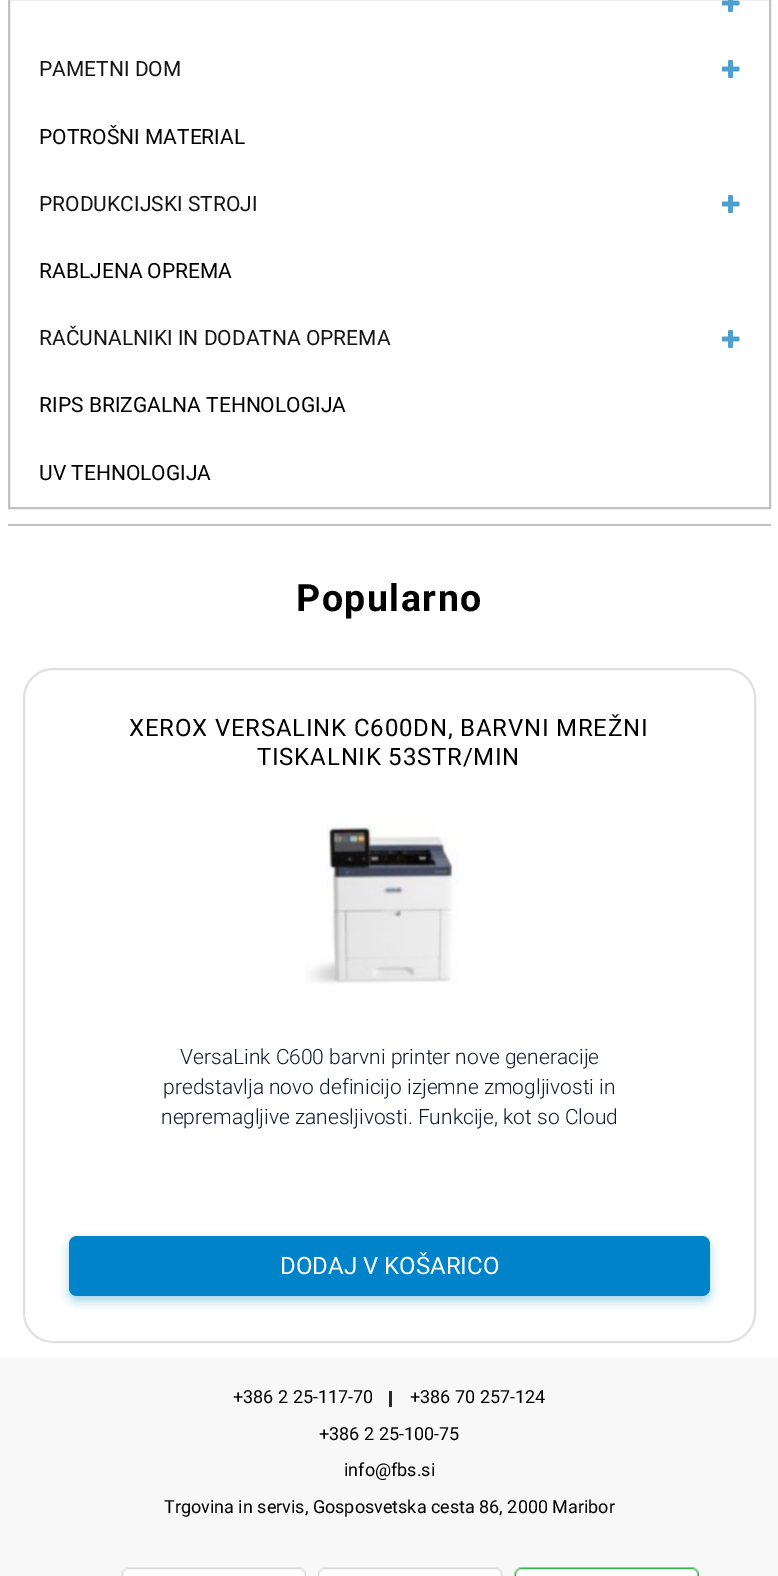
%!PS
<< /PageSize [778 1576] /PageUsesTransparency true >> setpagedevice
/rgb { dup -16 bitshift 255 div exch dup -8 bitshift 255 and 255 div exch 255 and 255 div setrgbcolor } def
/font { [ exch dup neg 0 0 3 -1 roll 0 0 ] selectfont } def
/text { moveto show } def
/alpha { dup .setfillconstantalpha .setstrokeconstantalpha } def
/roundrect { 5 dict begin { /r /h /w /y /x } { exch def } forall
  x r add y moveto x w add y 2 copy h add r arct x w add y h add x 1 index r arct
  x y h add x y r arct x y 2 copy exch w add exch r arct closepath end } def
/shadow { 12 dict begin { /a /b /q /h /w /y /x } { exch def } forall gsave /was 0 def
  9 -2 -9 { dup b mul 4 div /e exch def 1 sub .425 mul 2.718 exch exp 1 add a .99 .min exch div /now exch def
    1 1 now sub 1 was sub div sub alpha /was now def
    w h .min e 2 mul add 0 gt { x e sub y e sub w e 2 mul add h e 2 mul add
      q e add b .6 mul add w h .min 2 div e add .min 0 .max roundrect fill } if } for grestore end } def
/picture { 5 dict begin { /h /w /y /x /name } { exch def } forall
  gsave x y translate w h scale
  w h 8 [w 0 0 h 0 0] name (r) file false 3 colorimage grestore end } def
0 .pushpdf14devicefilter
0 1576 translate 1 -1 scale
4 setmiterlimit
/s1 { /Roboto-Regular 21 font 16#151515 rgb } def
/s2 { /Roboto-Regular 21 font 16#000000 rgb } def
/s3 { /Roboto-Light 21 font 16#0E1A35 rgb } def
/s4 { /Roboto-Regular 24 font 16#FFFFFF rgb } def
/s5 { /Roboto-Regular 18 font 16#000000 rgb } def
16#FFFFFF rgb
0 0 778 1576 rectfill
16#C1C1C1 rgb
2 setlinewidth
9 -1 761 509 rectstroke
(pic1.raw) 722 0 18 12 picture
s1
(PAMETNI DOM) 39 76 text
(pic2.raw) 722 60 18 18 picture
s2
(POTROŠNI MATERIAL) 39 144 text
s1
(PRODUKCIJSKI STROJI) 39 211 text
(pic2.raw) 722 195 18 18 picture
s2
(RABLJENA OPREMA) 39 278 text
s1
(RAČUNALNIKI IN DODATNA OPREMA) 39 345 text
(pic2.raw) 722 330 18 18 picture
s2
(RIPS BRIZGALNA TEHNOLOGIJA) 39 412 text
(UV TEHNOLOGIJA) 39 480 text
16#C1C1C1 rgb
8 524 763 2 rectfill
/Roboto-Bold 37.5 font
16#000000 rgb
296 611 moveto 1.5 0 (Popularno) ashow
16#E0E0E0 rgb
24 669 731 673 29 roundrect stroke
/Roboto-Regular 24 font
16#000000 rgb
129 736 moveto 0.8 0 (XEROX VERSALINK C600DN, BARVNI MREŽNI) ashow
257 765 moveto 0.8 0 (TISKALNIK 53STR/MIN) ashow
(pic3.raw) 305 823 154 162 picture
s3
(VersaLink C600 barvni printer nove generacije) 180 1064 text
(predstavlja novo definicijo izjemne zmogljivosti in) 163 1094 text
(nepremagljive zanesljivosti. Funkcije, kot so Cloud) 161 1124 text
16#0083C9 rgb
69 1241 641 60 8 5 0.35 shadow
69 1236 641 60 8 roundrect fill
s4
(DODAJ V KOŠARICO) 280 1274 text
16#F8F8F8 rgb
0 1358 778 218 rectfill
s5
(+386 2 25-117-70) 233 1403 text
16#2A292C rgb
389 1391 3 16 rectfill
s5
(+386 70 257-124) 410 1403 text
(+386 2 25-100-75) 319 1440 text
(info@fbs.si) 344 1476 text
(Trgovina in servis, Gosposvetska cesta 86, 2000 Maribor) 164 1513 text
(pic4.raw) 121 1567 578 9 picture
.poppdf14devicefilter showpage
